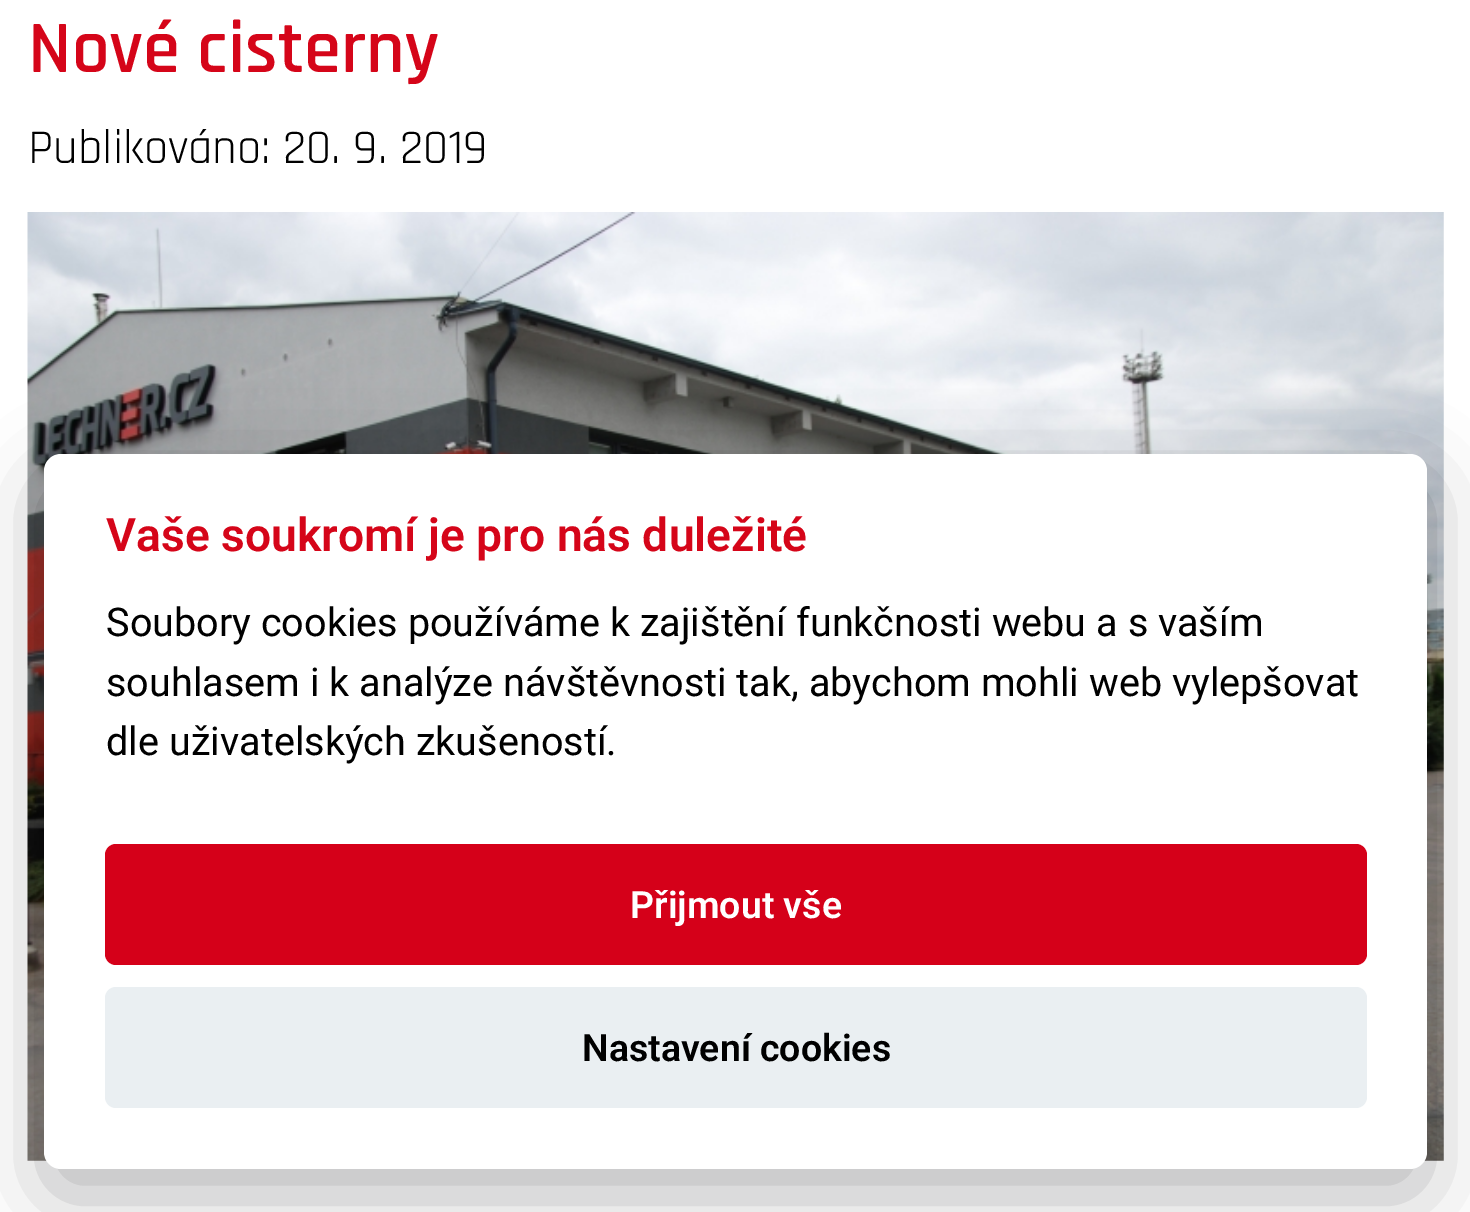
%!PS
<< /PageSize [1470 1212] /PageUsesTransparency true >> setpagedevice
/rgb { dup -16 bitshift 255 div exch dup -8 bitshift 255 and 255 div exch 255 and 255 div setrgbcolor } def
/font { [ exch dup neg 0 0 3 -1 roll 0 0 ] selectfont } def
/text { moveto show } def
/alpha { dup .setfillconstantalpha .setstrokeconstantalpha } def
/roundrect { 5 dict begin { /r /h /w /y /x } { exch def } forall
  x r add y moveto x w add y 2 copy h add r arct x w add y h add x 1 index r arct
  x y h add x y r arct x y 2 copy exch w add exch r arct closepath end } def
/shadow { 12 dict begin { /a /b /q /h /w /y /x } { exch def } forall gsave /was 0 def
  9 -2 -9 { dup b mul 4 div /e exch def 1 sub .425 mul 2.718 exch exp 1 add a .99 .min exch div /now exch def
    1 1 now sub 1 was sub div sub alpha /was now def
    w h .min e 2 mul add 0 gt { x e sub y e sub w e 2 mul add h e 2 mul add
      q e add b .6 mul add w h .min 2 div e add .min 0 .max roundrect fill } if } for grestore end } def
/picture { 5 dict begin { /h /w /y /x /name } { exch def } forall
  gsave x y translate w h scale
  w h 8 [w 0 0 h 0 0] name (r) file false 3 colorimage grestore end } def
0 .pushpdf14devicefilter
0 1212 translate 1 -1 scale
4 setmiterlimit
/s1 { /Rajdhani-SemiBold 74.75 font 16#D50519 rgb } def
/s2 { /Rajdhani-Regular 48.5 font 16#000000 rgb } def
/s3 { /Roboto-SemiBold 46.25 font 16#D50519 rgb } def
/s4 { /Roboto-Regular 39.6 font 16#000000 rgb } def
/s5 { /Roboto-SemiBold 37.5 font 16#FFFFFF rgb } def
/s6 { /Roboto-SemiBold 37.5 font 16#000000 rgb } def
16#FFFFFF rgb
0 0 1470 1212 rectfill
s1
(Nové cisterny) 28 72 text
s2
(Publikováno: 20. 9. 2019) 28 163 text
(pic1.raw) 27 212 1417 949 picture
16#020203 rgb
44 481 1383 715 17 41 0.28 shadow
16#FFFFFF rgb
44 454 1383 715 17 roundrect fill
s3
(Vaše soukromí je pro nás duležité) 106 551 text
s4
(Soubory cookies používáme k zajištění funkčnosti webu a s vaším) 106 636 text
(souhlasem i k analýze návštěvnosti tak, abychom mohli web vylepšovat) 106 696 text
(dle uživatelských zkušeností.) 106 755 text
16#D50019 rgb
105 844 1262 121 11 roundrect fill
s5
(Přijmout vše) 630 918 text
16#EAEFF2 rgb
105 987 1262 121 11 roundrect fill
s6
(Nastavení cookies) 582 1061 text
.poppdf14devicefilter showpage
